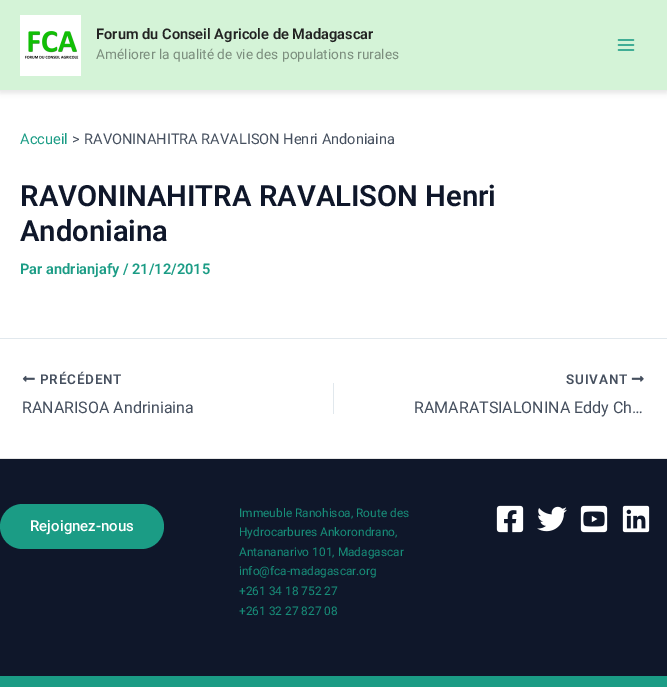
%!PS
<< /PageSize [667 687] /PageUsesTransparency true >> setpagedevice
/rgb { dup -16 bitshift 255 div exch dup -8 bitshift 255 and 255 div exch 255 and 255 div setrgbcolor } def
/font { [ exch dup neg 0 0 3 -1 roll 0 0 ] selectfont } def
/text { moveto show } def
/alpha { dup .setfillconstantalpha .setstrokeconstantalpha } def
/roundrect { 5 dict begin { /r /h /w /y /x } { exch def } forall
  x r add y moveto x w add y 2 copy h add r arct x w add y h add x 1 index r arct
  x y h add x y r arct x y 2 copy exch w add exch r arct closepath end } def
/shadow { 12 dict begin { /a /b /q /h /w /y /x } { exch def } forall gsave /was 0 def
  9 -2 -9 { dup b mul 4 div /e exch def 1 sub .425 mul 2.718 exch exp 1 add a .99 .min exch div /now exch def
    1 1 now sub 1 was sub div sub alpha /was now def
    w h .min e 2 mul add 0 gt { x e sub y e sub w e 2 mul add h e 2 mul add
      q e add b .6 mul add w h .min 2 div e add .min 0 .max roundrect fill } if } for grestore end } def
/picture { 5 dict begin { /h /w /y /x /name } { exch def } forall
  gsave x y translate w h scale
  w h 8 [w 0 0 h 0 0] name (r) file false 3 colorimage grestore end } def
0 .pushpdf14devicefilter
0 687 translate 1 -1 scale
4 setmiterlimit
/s1 { /Roboto-SemiBold 14.6 font 16#222222 rgb } def
/s2 { /Roboto-Regular 13.7 font 16#7B8D7D rgb } def
/s3 { /Roboto-Regular 14.6 font 16#1B9C85 rgb } def
/s4 { /Roboto-Regular 14.6 font 16#454F5E rgb } def
/s5 { /Roboto-SemiBold 29.2 font 16#0F172A rgb } def
/s6 { /Roboto-SemiBold 14.6 font 16#1B9C85 rgb } def
/s7 { /Roboto-Regular 16 font 16#454F5E rgb } def
/s8 { /Roboto-Medium 15 font 16#FFFFFF rgb } def
/s9 { /Roboto-Regular 11.9 font 16#178E79 rgb } def
16#FFFFFF rgb
0 0 667 687 rectfill
16#000000 rgb
0 2 667 91 0 2.5 0.1 shadow
16#D4F3D7 rgb
0 0 667 90 rectfill
16#EAEAEA rgb
0 90 667 1 rectfill
(pic1.raw) 20 15 61 61 picture
s1
(Forum du Conseil Agricole de Madagascar) 96 39 text
s2
(Améliorer la qualité de vie des populations rurales) 96 59 text
(pic2.raw) 617 39 18 12 picture
s3
(Accueil) 20 144 text
s4
(>) 72 144 text
(RAVONINAHITRA RAVALISON Henri Andoniaina) 84 144 text
s5
(RAVONINAHITRA RAVALISON Henri) 20 206 text
(Andoniaina) 20 241 text
s6
(Par andrianjafy / 21/12/2015) 20 274 text
16#E1E8ED rgb
0 338 667 1 rectfill
(pic3.raw) 22 375 13 7 picture
/Roboto-SemiBold 13.5 font
16#454F5E rgb
40 384 moveto 0.75 0 (PRÉCÉDENT) ashow
s7
(RANARISOA Andriniaina) 22 413 text
16#E1E8ED rgb
333 383 1 31 rectfill
/Roboto-SemiBold 13.5 font
16#454F5E rgb
566 384 moveto 0.75 0 (SUIVANT) ashow
(pic4.raw) 631 375 13 7 picture
s7
(RAMARATSIALONINA Eddy Ch…) 414 413 text
16#1B9C85 rgb
0 676 667 11 rectfill
16#0F172A rgb
0 459 667 217 rectfill
16#E6E6E6 rgb
0 458 667 1 rectfill
16#1B9C85 rgb
0 504 164 45 22.5 roundrect fill
s8
(Rejoignez-nous) 30 531 text
s9
(Immeuble Ranohisoa, Route des) 239 517 text
(Hydrocarbures Ankorondrano,) 239 536 text
(Antananarivo 101, Madagascar) 239 556 text
(info@fca-madagascar.org) 239 575 text
(+261 34 18 752 27) 239 595 text
(+261 32 27 827 08) 239 615 text
(pic5.raw) 496 505 28 28 picture
(pic6.raw) 537 506 30 26 picture
(pic7.raw) 580 505 28 28 picture
(pic8.raw) 622 505 28 28 picture
.poppdf14devicefilter showpage
